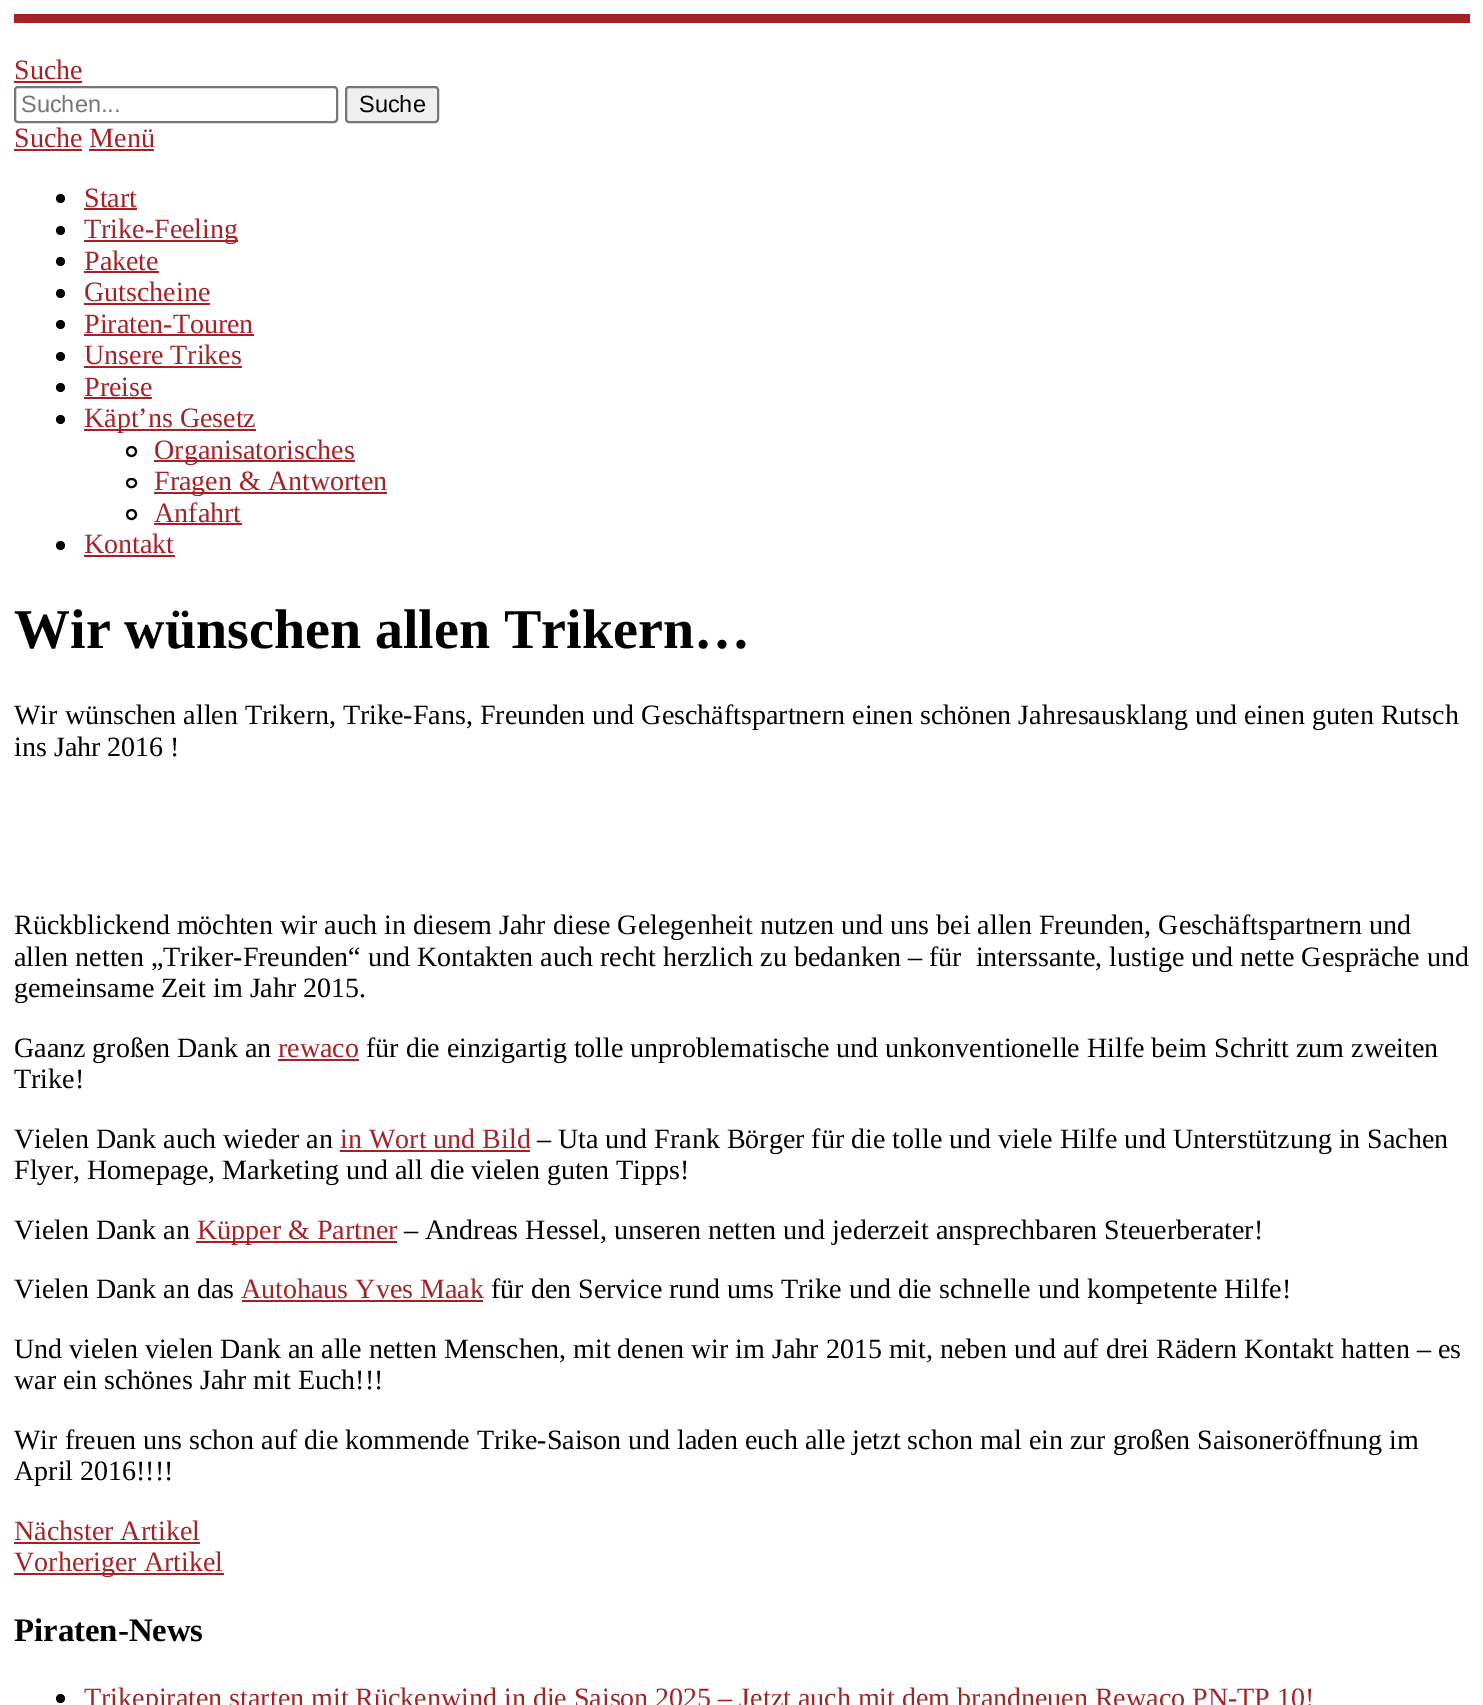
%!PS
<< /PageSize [1483 1705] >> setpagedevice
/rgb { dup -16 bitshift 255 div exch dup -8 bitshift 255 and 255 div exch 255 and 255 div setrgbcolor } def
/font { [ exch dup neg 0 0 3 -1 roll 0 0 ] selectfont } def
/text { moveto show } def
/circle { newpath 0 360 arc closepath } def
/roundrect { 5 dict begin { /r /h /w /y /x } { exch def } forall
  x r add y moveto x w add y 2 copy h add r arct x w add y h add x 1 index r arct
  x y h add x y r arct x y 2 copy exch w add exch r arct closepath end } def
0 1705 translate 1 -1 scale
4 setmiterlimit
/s1 { /LiberationSerif-Regular 28 font 16#A62126 rgb } def
/s2 { /LiberationSans-Regular 23.5 font 16#757575 rgb } def
/s3 { /LiberationSans-Regular 23.5 font 16#000000 rgb } def
/s4 { /LiberationSerif-Bold 56 font 16#000000 rgb } def
/s5 { /LiberationSerif-Regular 28 font 16#000000 rgb } def
/s6 { /LiberationSerif-Bold 32.75 font 16#000000 rgb } def
16#FFFFFF rgb
0 0 1483 1705 rectfill
16#A62126 rgb
14 14 1456 9 rectfill
s1
(Suche) 14 79 text
14 81 68 2 rectfill
16#767676 rgb
2 setlinewidth
15 87 322 35 3 roundrect stroke
s2
(Suchen...) 21 112 text
16#EFEFEF rgb
346 87 92 35 3 roundrect gsave fill grestore
16#767676 rgb
stroke
s3
(Suche) 359 112 text
s1
(Suche Menü) 14 147 text
14 149 68 2 rectfill
89 149 65 2 rectfill
16#000000 rgb
60.5 198.5 4.5 circle fill
s1
(Start) 84 207 text
84 208 53 2 rectfill
16#000000 rgb
60.5 230.5 4.5 circle fill
16#A62126 rgb
84 240 154 2 rectfill
(Trike-Feeling) 84 238 text
16#000000 rgb
60.5 261.5 4.5 circle fill
s1
(Pakete) 84 270 text
84 271 75 2 rectfill
16#000000 rgb
60.5 293.5 4.5 circle fill
s1
(Gutscheine) 84 301 text
84 303 126 2 rectfill
16#000000 rgb
60.5 324.5 4.5 circle fill
s1
(Piraten-Touren) 84 333 text
84 334 170 2 rectfill
16#000000 rgb
60.5 356.5 4.5 circle fill
s1
(Unsere Trikes) 84 364 text
84 366 158 2 rectfill
16#000000 rgb
60.5 387.5 4.5 circle fill
s1
(Preise) 84 396 text
84 397 68 2 rectfill
16#000000 rgb
60.5 419.5 4.5 circle fill
16#A62126 rgb
84 429 172 2 rectfill
(Käpt’ns Gesetz) 84 427 text
16#000000 rgb
131.5 451.5 4.5 circle stroke
16#A62126 rgb
154 460 201 2 rectfill
(Organisatorisches) 154 459 text
16#000000 rgb
127 479 9 8 4 roundrect stroke
16#A62126 rgb
154 492 233 2 rectfill
(Fragen & Antworten) 154 490 text
16#000000 rgb
131.5 514.5 4.5 circle stroke
s1
(Anfahrt) 154 522 text
154 523 88 2 rectfill
16#000000 rgb
60.5 545.5 4.5 circle fill
s1
(Kontakt) 84 553 text
84 555 91 2 rectfill
s4
(Wir wünschen allen Trikern…) 14 648 text
s5
(Wir wünschen allen Trikern, Trike-Fans, Freunden und Geschäftspartnern einen schönen Jahresausklang und einen guten Rutsch) 14 724 text
(ins Jahr 2016 !) 14 756 text
(Rückblickend möchten wir auch in diesem Jahr diese Gelegenheit nutzen und uns bei allen Freunden, Geschäftspartnern und) 14 934 text
(allen netten „Triker-Freunden“ und Kontakten auch recht herzlich zu bedanken – für  interssante, lustige und nette Gespräche und) 14 966 text
(gemeinsame Zeit im Jahr 2015.) 14 997 text
(Gaanz großen Dank an) 14 1057 text
s1
(rewaco) 278 1057 text
278 1059 81 2 rectfill
s5
(für die einzigartig tolle unproblematische und unkonventionelle Hilfe beim Schritt zum zweiten) 366 1057 text
(Trike!) 14 1088 text
(Vielen Dank auch wieder an) 14 1148 text
s1
(in Wort und Bild) 340 1148 text
340 1150 190 2 rectfill
s5
(– Uta und Frank Börger für die tolle und viele Hilfe und Unterstützung in Sachen) 537 1148 text
(Flyer, Homepage, Marketing und all die vielen guten Tipps!) 14 1179 text
(Vielen Dank an) 14 1239 text
16#A62126 rgb
196 1241 201 2 rectfill
(Küpper & Partner) 197 1239 text
s5
(– Andreas Hessel, unseren netten und jederzeit ansprechbaren Steuerberater!) 404 1239 text
(Vielen Dank an das) 14 1298 text
s1
(Autohaus Yves Maak) 241 1298 text
242 1300 241 2 rectfill
s5
(für den Service rund ums Trike und die schnelle und kompetente Hilfe!) 491 1298 text
(Und vielen vielen Dank an alle netten Menschen, mit denen wir im Jahr 2015 mit, neben und auf drei Rädern Kontakt hatten – es) 14 1358 text
(war ein schönes Jahr mit Euch!!!) 14 1389 text
(Wir freuen uns schon auf die kommende Trike-Saison und laden euch alle jetzt schon mal ein zur großen Saisoneröffnung im) 14 1449 text
(April 2016!!!!) 14 1480 text
s1
(Nächster Artikel) 14 1540 text
14 1542 186 2 rectfill
14 1573 210 2 rectfill
(Vorheriger Artikel) 14 1571 text
s6
(Piraten-News) 14 1641 text
60.5 1698.5 4.5 circle fill
s1
(Trikepiraten starten mit Rückenwind in die Saison 2025 – Jetzt auch mit dem brandneuen Rewaco PN-TP 10!) 84 1707 text
showpage
